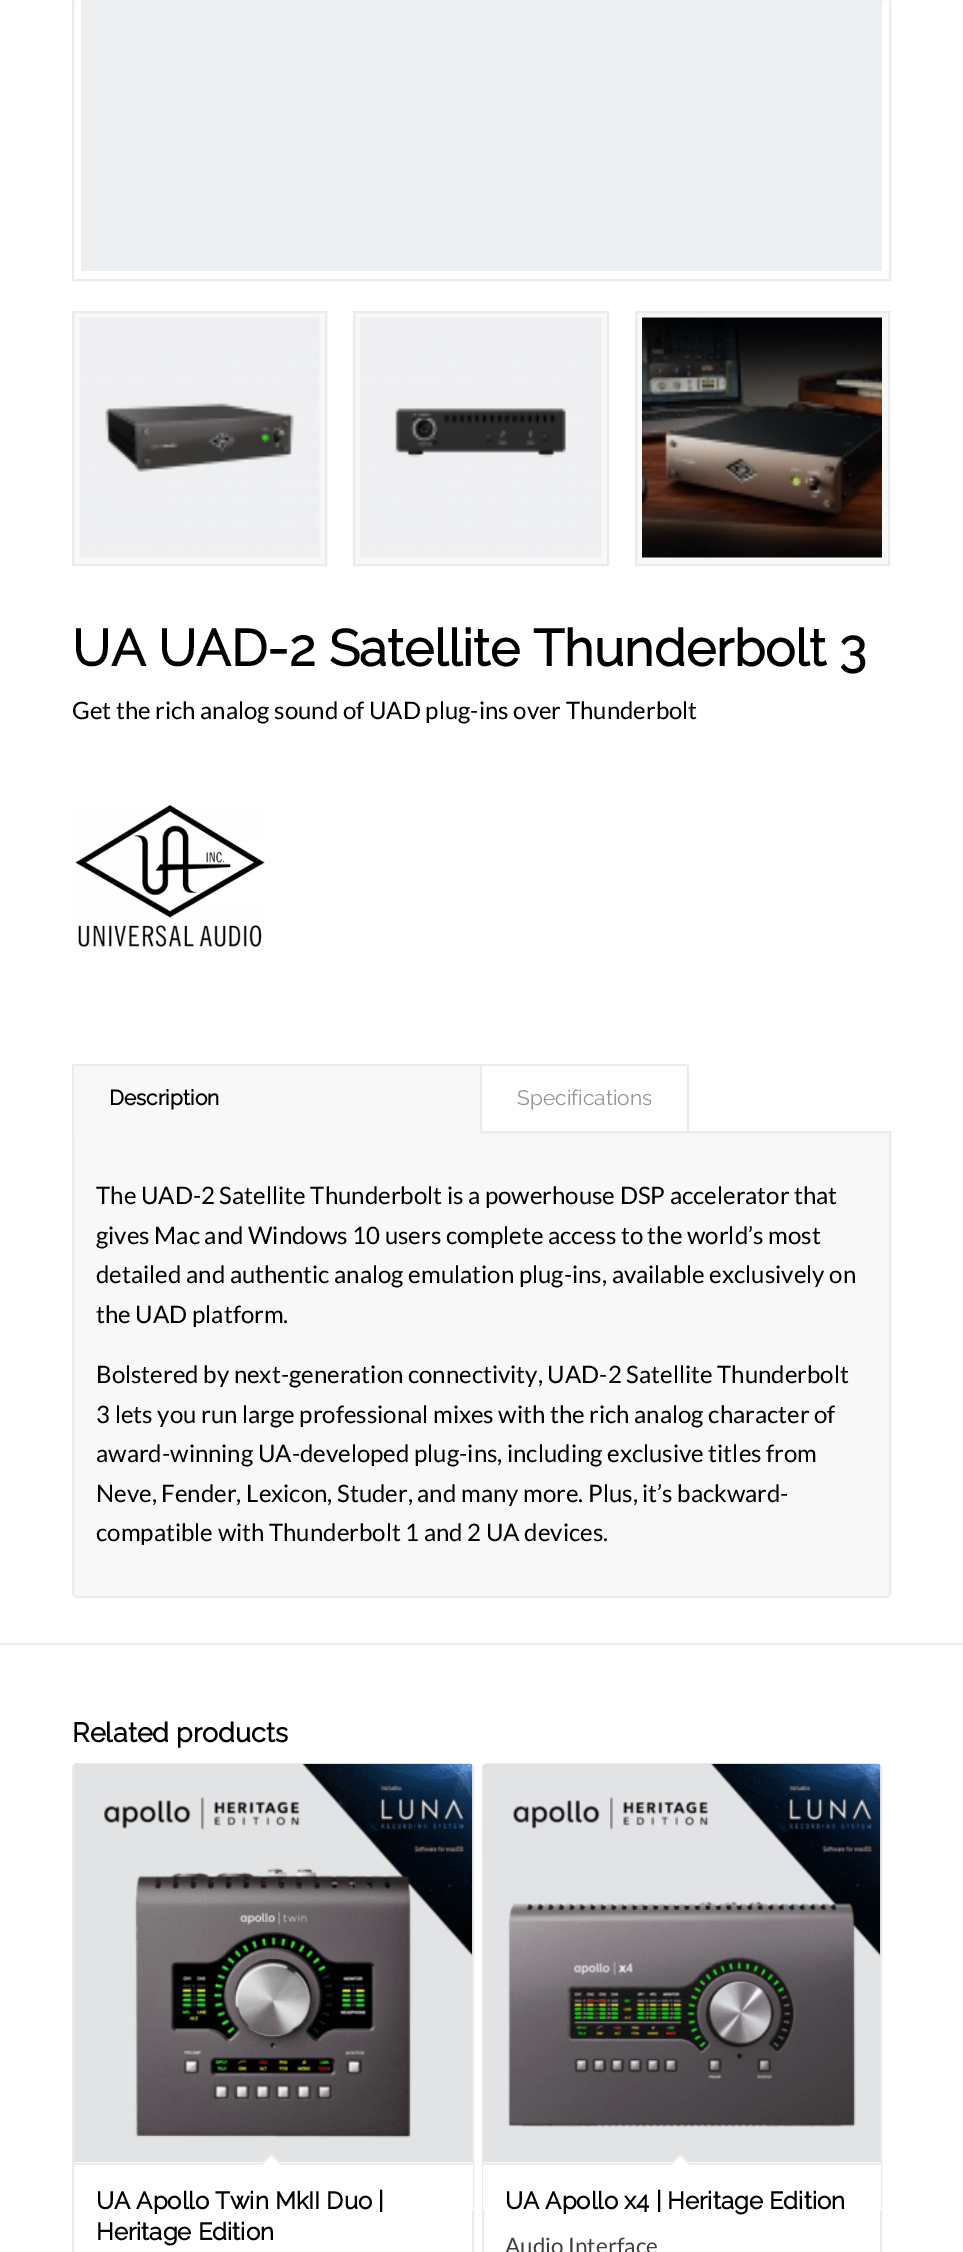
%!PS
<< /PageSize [963 2252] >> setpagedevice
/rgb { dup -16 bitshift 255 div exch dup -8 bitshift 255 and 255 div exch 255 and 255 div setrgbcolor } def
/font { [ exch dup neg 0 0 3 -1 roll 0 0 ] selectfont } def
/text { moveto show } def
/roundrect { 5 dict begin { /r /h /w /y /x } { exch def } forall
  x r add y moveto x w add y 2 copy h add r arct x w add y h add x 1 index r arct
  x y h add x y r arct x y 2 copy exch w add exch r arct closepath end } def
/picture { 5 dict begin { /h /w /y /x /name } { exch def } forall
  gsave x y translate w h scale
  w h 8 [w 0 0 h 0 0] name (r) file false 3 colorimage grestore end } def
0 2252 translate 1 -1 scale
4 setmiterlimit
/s1 { /Raleway-Bold 51 font 16#000000 rgb } def
/s2 { /Lato-Regular 24 font 16#000000 rgb } def
/s3 { /Raleway-Bold 21 font 16#000000 rgb } def
/s4 { /Raleway-Thin 21 font 16#969696 rgb } def
/s5 { /Raleway-Bold 27 font 16#000000 rgb } def
/s6 { /Raleway-Bold 24 font 16#000000 rgb } def
/s7 { /Lato-Regular 22.5 font 16#404040 rgb } def
16#FFFFFF rgb
0 0 963 2252 rectfill
16#EBEBEB rgb
2 setlinewidth
73 -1 817 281 rectstroke
16#EEEFF1 rgb
81 0 801 271 rectfill
16#F8F8F8 rgb
73 312 moveto 326 312 lineto 326 565 lineto 73 565 lineto closepath gsave fill grestore
16#EBEBEB rgb
stroke
(pic1.raw) 79 317 241 241 picture
16#F8F8F8 rgb
354 312 moveto 608 312 lineto 608 565 lineto 354 565 lineto closepath gsave fill grestore
16#EBEBEB rgb
stroke
(pic2.raw) 360 317 242 241 picture
16#F8F8F8 rgb
636 312 moveto 889 312 lineto 889 565 lineto 636 565 lineto closepath gsave fill grestore
16#EBEBEB rgb
stroke
(pic3.raw) 642 317 240 241 picture
s1
(UA UAD-2 Satellite Thunderbolt 3) 72 666 text
s2
(Get the rich analog sound of UAD plug-ins over Thunderbolt) 72 719 text
(pic4.raw) 75 805 190 142 picture
16#F8F8F8 rgb
73 1132 moveto 890 1132 lineto 890 1593 lineto 890 1595 888 1597 886 1597 curveto 77 1597 lineto 75 1597 73 1595 73 1593 curveto closepath gsave fill grestore
16#EBEBEB rgb
stroke
16#F8F8F8 rgb
74 1066 406 67 rectfill
16#EBEBEB rgb
72 1064 615 2 rectfill
480 1064 2 69 rectfill
72 1064 2 69 rectfill
s3
(Description) 109 1105 text
16#EBEBEB rgb
687 1065 2 68 rectfill
s4
(Specifications) 517 1105 text
s2
(The UAD-2 Satellite Thunderbolt is a powerhouse DSP accelerator that) 96 1204 text
(gives Mac and Windows 10 users complete access to the world’s most) 96 1244 text
(detailed and authentic analog emulation plug-ins, available exclusively on) 96 1283 text
(the UAD platform.) 96 1323 text
(Bolstered by next-generation connectivity, UAD-2 Satellite Thunderbolt) 96 1383 text
(3 lets you run large professional mixes with the rich analog character of) 96 1423 text
(award-winning UA-developed plug-ins, including exclusive titles from) 96 1462 text
(Neve, Fender, Lexicon, Studer, and many more. Plus, it’s backward-) 96 1502 text
(compatible with Thunderbolt 1 and 2 UA devices.) 96 1541 text
16#EBEBEB rgb
0 1643 963 2 rectfill
s5
(Related products) 72 1742 text
16#EBEBEB rgb
73 1764 400 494 4 roundrect stroke
(pic5.raw) 74 1763 399 400 picture
16#FFFFFF rgb
472 2165 1 45 rectfill
16#EBEBEB rgb
74 2163 399 2 rectfill
16#FFFFFF rgb
271.5 2153.5 moveto 282 2164 lineto 271.5 2175 lineto 260.5 2164 lineto closepath fill
16#EBEBEB rgb
271.5 2153.5 moveto 282 2164 lineto 281 2165.5 lineto 270 2154.5 lineto closepath fill
271.5 2153.5 moveto 272.5 2154.5 lineto 261.5 2165.5 lineto 260.5 2164 lineto closepath fill
s6
(UA Apollo Twin MkII Duo |) 96 2209 text
(Heritage Edition) 96 2240 text
16#EBEBEB rgb
483 1764 398 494 4 roundrect stroke
(pic6.raw) 483 1763 398 400 picture
16#FFFFFF rgb
483 2165 398 45 rectfill
16#EBEBEB rgb
483 2163 398 2 rectfill
16#FFFFFF rgb
680.5 2153.5 moveto 691 2164 lineto 680.5 2175 lineto 670 2164 lineto closepath fill
16#EBEBEB rgb
680.5 2153.5 moveto 691 2164 lineto 690 2165.5 lineto 679.5 2154.5 lineto closepath fill
680.5 2153.5 moveto 681.5 2154.5 lineto 671 2165.5 lineto 670 2164 lineto closepath fill
s6
(UA Apollo x4 | Heritage Edition) 505 2209 text
s7
(Audio Interface) 505 2254 text
showpage
